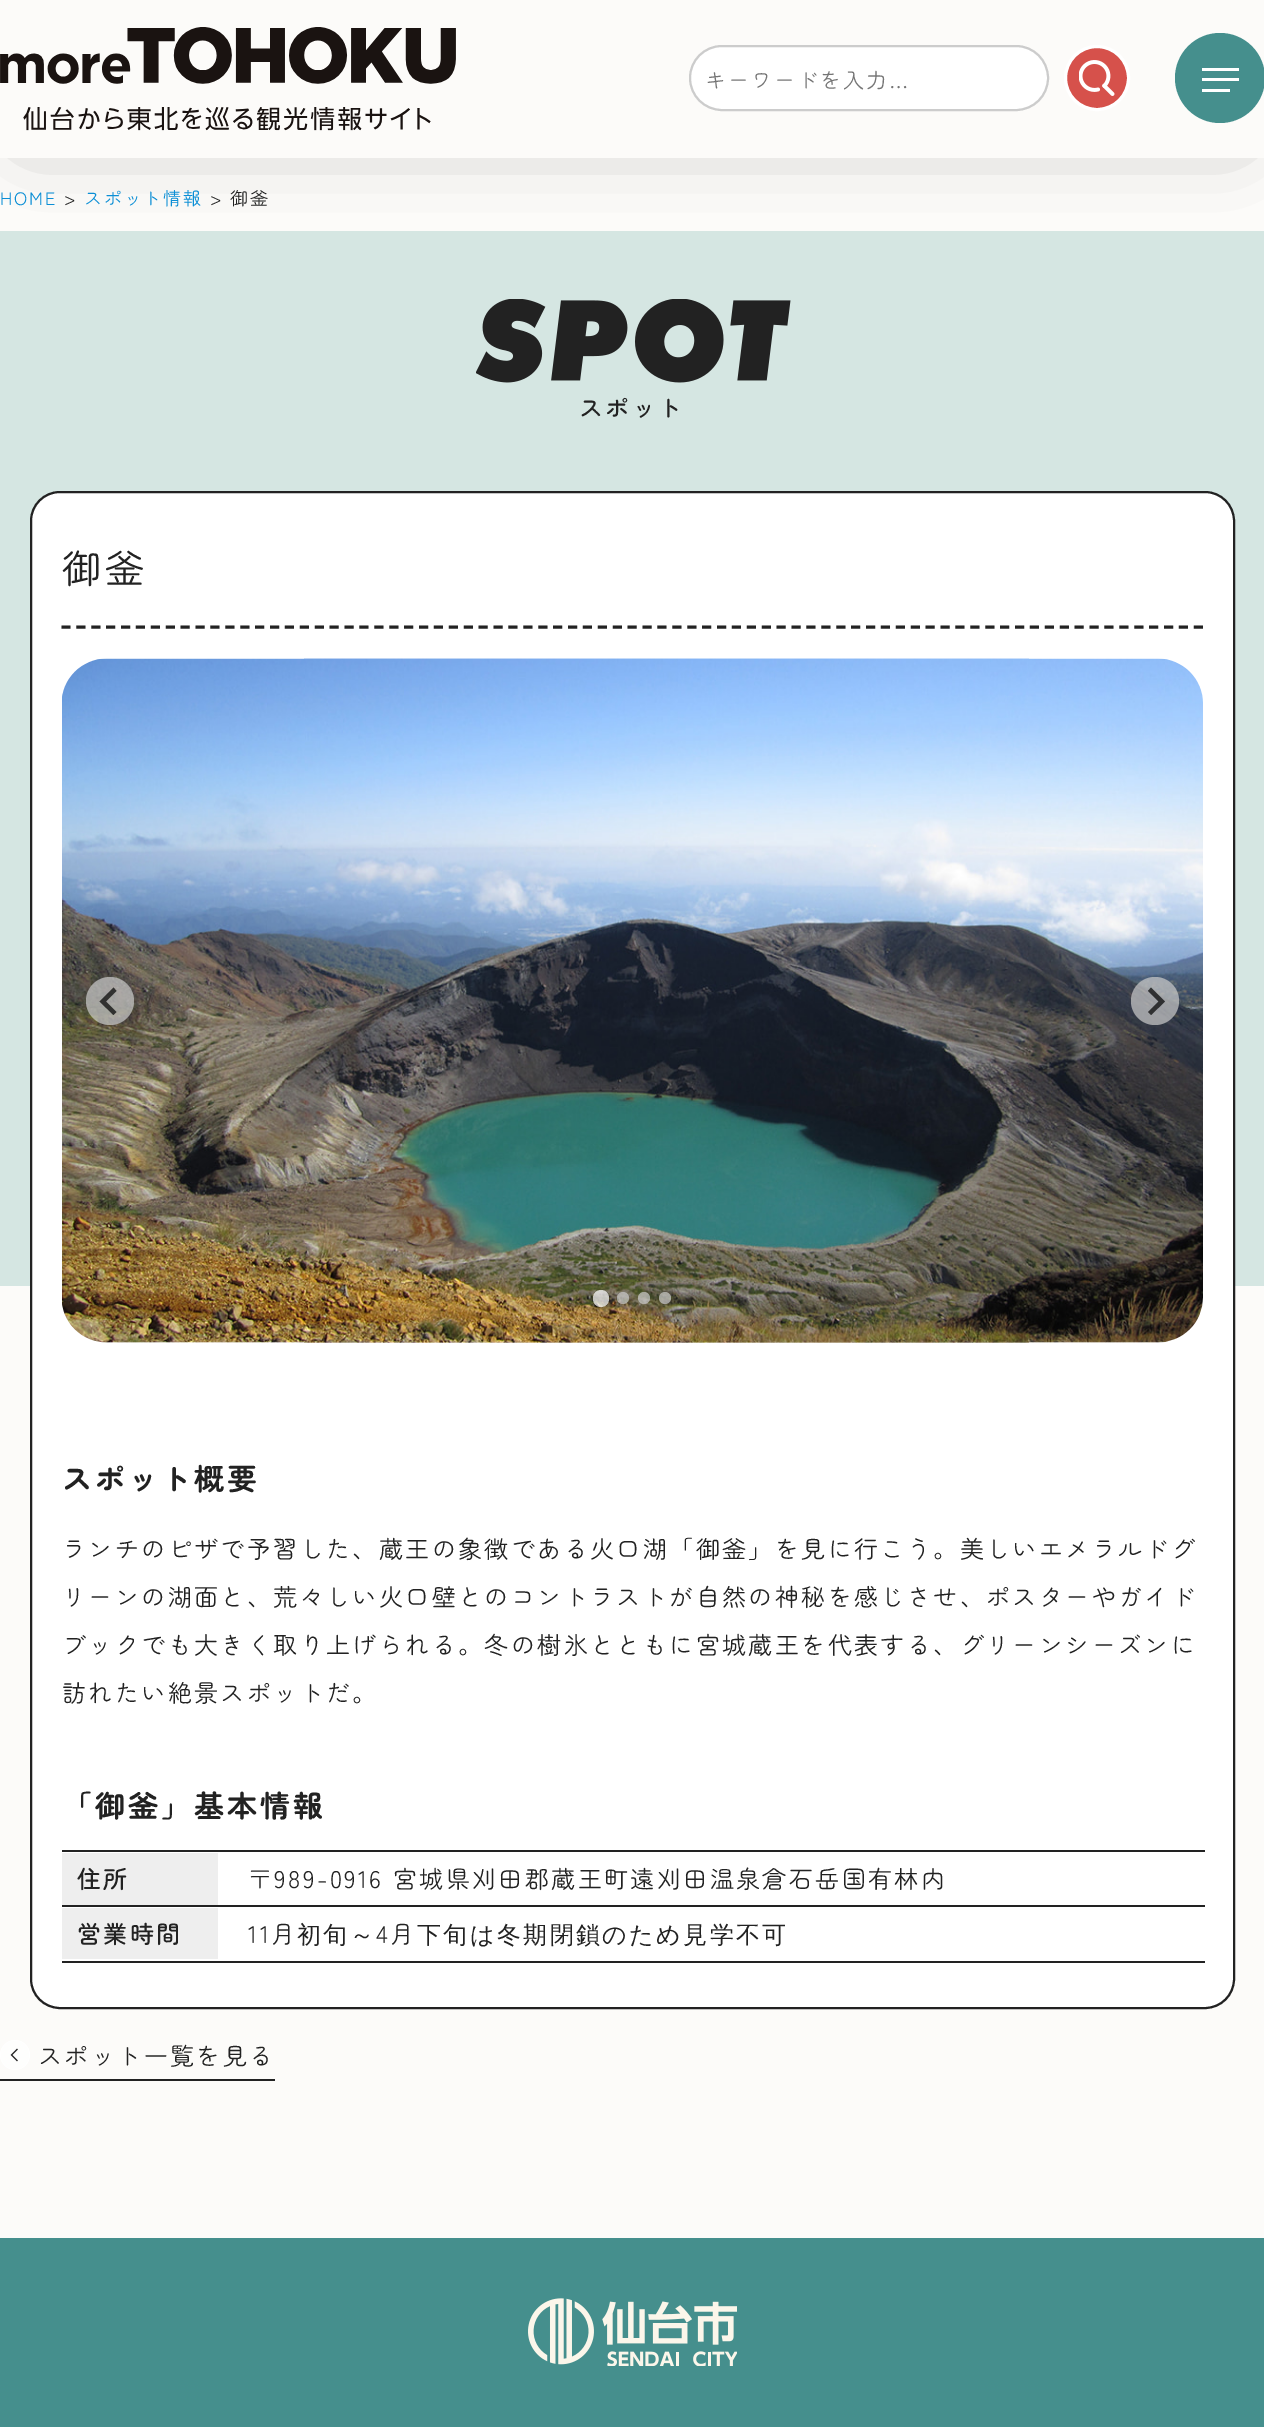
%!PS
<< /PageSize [1264 2427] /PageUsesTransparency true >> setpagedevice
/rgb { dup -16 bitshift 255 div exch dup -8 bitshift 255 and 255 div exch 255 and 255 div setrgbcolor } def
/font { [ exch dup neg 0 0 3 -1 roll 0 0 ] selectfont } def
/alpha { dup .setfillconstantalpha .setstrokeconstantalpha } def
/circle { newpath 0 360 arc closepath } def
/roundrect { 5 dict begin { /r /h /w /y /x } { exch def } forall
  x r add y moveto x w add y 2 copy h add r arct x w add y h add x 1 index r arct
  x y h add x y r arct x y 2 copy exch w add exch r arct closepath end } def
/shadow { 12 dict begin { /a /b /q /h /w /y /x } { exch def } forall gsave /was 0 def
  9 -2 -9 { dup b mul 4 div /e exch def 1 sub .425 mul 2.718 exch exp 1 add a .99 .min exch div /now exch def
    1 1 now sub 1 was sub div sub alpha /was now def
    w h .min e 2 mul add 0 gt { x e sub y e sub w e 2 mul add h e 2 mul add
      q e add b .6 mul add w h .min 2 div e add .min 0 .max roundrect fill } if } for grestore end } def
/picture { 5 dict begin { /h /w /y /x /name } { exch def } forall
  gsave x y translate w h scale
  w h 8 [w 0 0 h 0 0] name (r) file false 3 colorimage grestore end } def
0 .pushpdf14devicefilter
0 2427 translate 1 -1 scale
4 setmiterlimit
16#FCFBF9 rgb
0 0 1264 2427 rectfill
16#D5E6E2 rgb
0 231 1264 1055 rectfill
16#000000 rgb
30 30 1205 98 0 37.5 0.4 shadow
16#FCFBF9 rgb
0 0 1264 158 rectfill
(pic1.raw) 0 27 456 104 picture
16#FFFFFF rgb
690 46 358 64 32 roundrect gsave fill grestore
16#CCCCCC rgb
2 setlinewidth
stroke
/ZenMaruGothic-Regular 21 font
16#757575 rgb
705 88 moveto 2 0 (キーワードを入力…) ashow
16#D6514B rgb
1097 78 31.5 circle gsave fill grestore
16#FFFFFF rgb
3 setlinewidth
stroke
(pic2.raw) 1079 60 36 36 picture
16#458F8D rgb
1220 78 45 circle fill
16#FFFFFF rgb
1202 68 37 3 rectfill
1202 78 37 3 rectfill
1202 89 28 3 rectfill
/ZenMaruGothic-Regular 18 font
16#0A8ED5 rgb
0 205 moveto 1.75 0 (HOME) ashow
16#222222 rgb
64 205 moveto 1.75 0 (>) ashow
16#0A8ED5 rgb
84 205 moveto 1.75 0 (スポット情報) ashow
16#222222 rgb
210 205 moveto 1.75 0 (> 御釜) ashow
(pic3.raw) 476 299 315 84 picture
/ZenMaruGothic-Medium 24 font
579 417 moveto 2.4 0 (スポット) ashow
16#FFFFFF rgb
31 492 1203 1516 29 roundrect gsave fill grestore
16#222222 rgb
2 setlinewidth
stroke
3 setlinewidth
[9 5.9] 0 setdash
61.5 627 moveto 1203 627 lineto stroke
/ZenMaruGothic-Regular 39 font
62 583 moveto 4 0 (御釜) ashow
(pic4.raw) 62 658 1141 685 picture
0.7 alpha
16#CCCCCC rgb
110 1001 24 circle fill
16#000000 rgb
113.5 987.5 moveto 116.5 991 lineto 106 1001.5 lineto 116.5 1012 lineto 113.5 1015 lineto 99.5 1001.5 lineto closepath fill
16#CCCCCC rgb
1155 1001 24 circle fill
16#000000 rgb
1151 987.5 moveto 1148 991 lineto 1158.5 1001.5 lineto 1148 1012 lineto 1151 1015 lineto 1165 1001.5 lineto closepath fill
16#FFFFFF rgb
593 1290 16 17 8 roundrect fill
16#CCCCCC rgb
623 1298 6 circle fill
644 1298 6 circle fill
665 1298 6 circle fill
/ZenMaruGothic-Bold 30 font
1 alpha
16#222222 rgb
62 1490 moveto 3 0 (スポット概要) ashow
/ZenMaruGothic-Regular 24 font
62 1558 moveto 2.4 0 (ランチのピザで予習した、蔵王の象徴である火口湖「御釜」を見に行こう。美しいエメラルドグ) ashow
62 1606 moveto 2.4 0 (リーンの湖面と、荒々しい火口壁とのコントラストが自然の神秘を感じさせ、ポスターやガイド) ashow
62 1654 moveto 2.4 0 (ブックでも大きく取り上げられる。冬の樹氷とともに宮城蔵王を代表する、グリーンシーズンに) ashow
62 1702 moveto 2.4 0 (訪れたい絶景スポットだ。) ashow
/ZenMaruGothic-Bold 30 font
62 1817 moveto 3 0 (「御釜」基本情報) ashow
16#EEEEEE rgb
62 1853 156 52 rectfill
/ZenMaruGothic-Medium 24 font
16#222222 rgb
77 1888 moveto 2.4 0 (住所) ashow
62 1850 1143 2 rectfill
/ZenMaruGothic-Regular 24 font
248 1888 moveto 2.4 0 (〒989-0916 宮城県刈田郡蔵王町遠刈田温泉倉石岳国有林内) ashow
16#EEEEEE rgb
62 1908 156 51 rectfill
/ZenMaruGothic-Medium 24 font
16#222222 rgb
77 1943 moveto 2.4 0 (営業時間) ashow
62 1905 1143 2 rectfill
62 1961 1143 2 rectfill
/ZenMaruGothic-Regular 24 font
248 1943 moveto 2.4 0 (11月) ashow
/WenQuanYiZenHei-Medium 24 font
297 1943 moveto 2.4 0 (初旬～) ashow
/ZenMaruGothic-Regular 24 font
376 1943 moveto 2.4 0 (4月) ashow
/WenQuanYiZenHei-Medium 24 font
417 1943 moveto 2.4 0 (下旬は冬期閉鎖のため見学不可) ashow
0 2079 275 2 rectfill
(pic5.raw) 0 2040 30 30 picture
/ZenMaruGothic-Regular 24 font
38 2065 moveto 2.4 0 (スポット一覧を見る) ashow
16#458F8D rgb
0 2238 1264 189 rectfill
(pic6.raw) 528 2298 209 68 picture
.poppdf14devicefilter showpage
